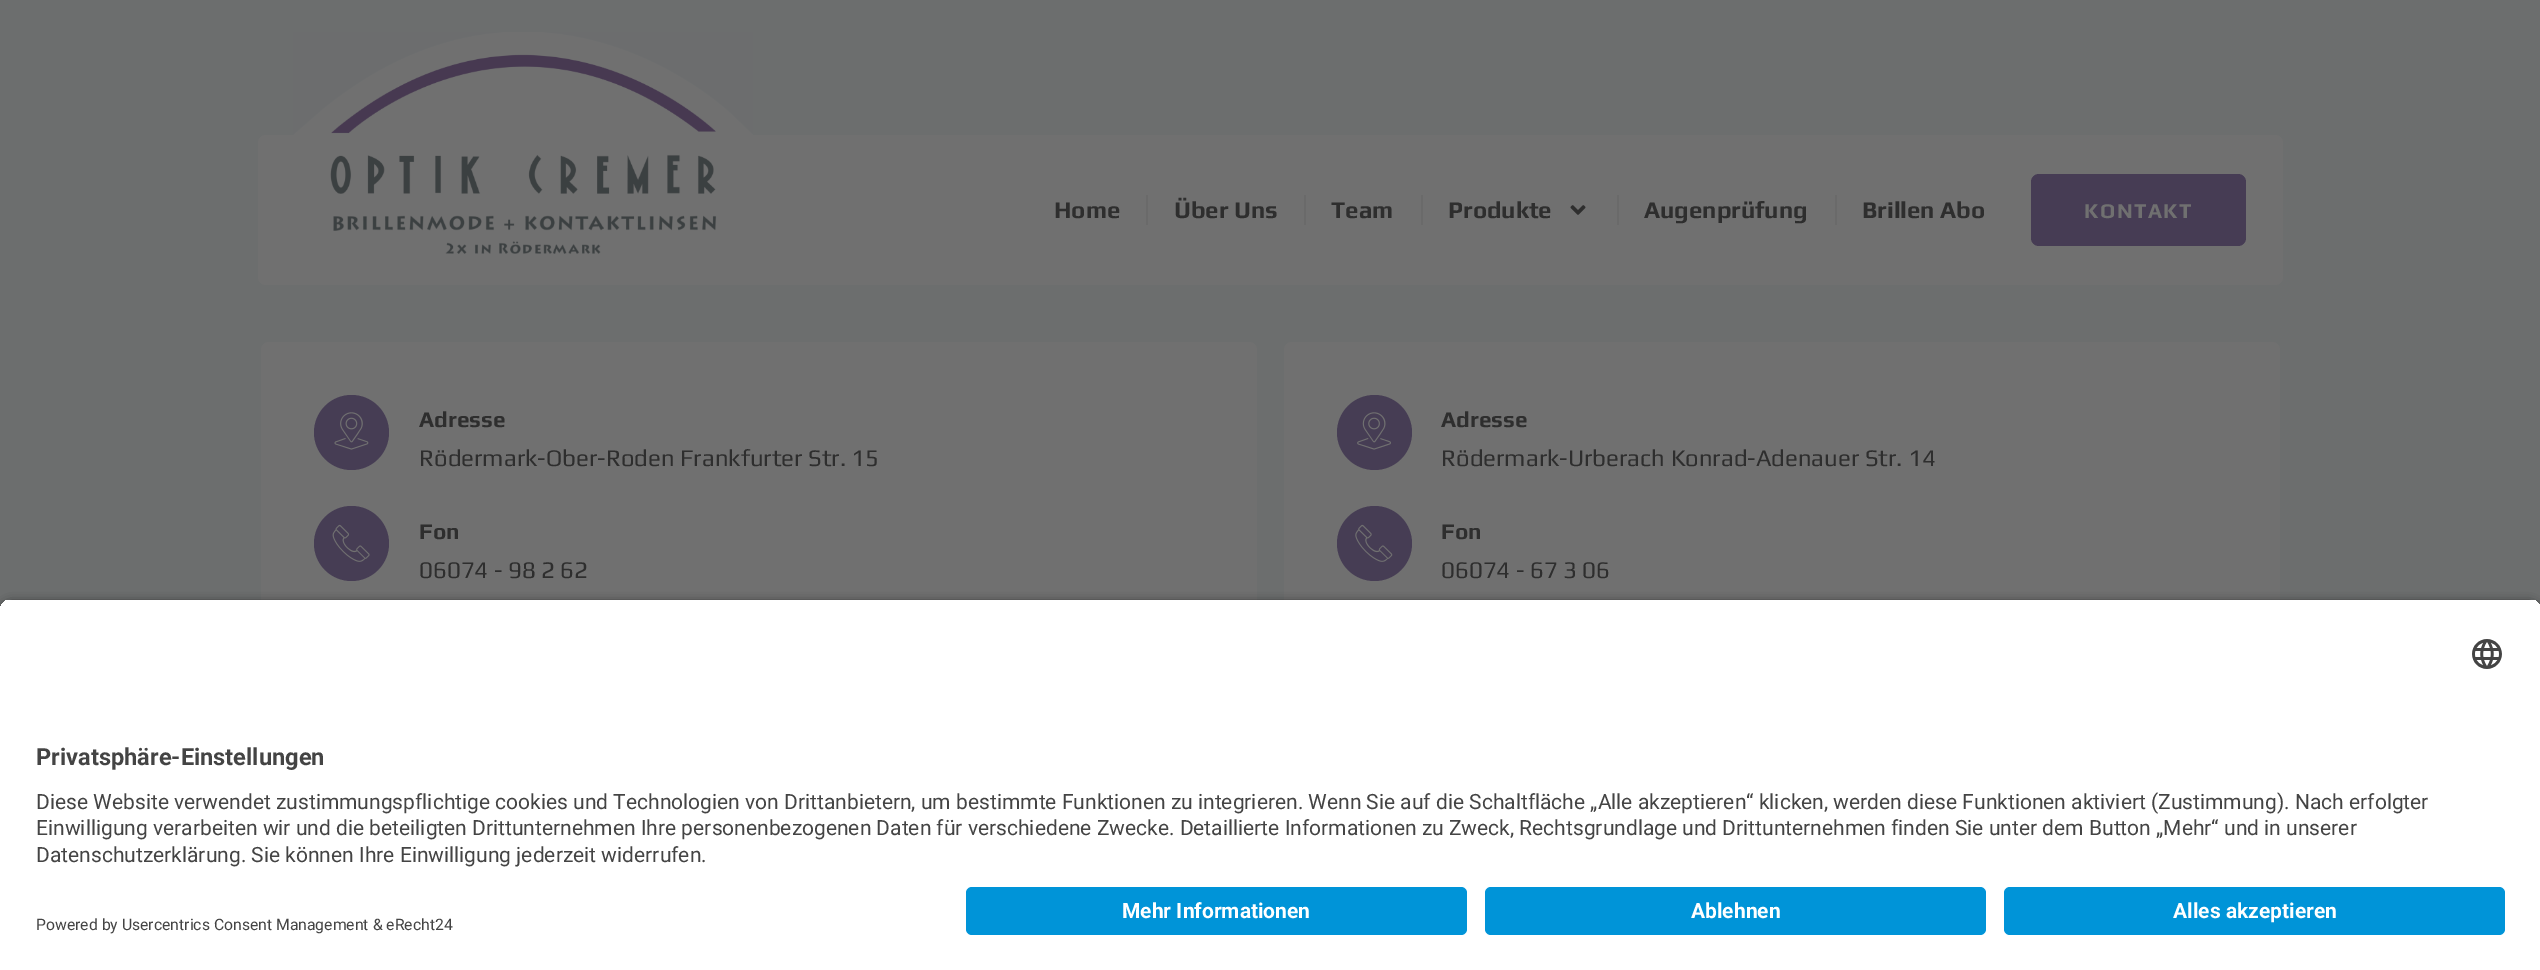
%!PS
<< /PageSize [2540 970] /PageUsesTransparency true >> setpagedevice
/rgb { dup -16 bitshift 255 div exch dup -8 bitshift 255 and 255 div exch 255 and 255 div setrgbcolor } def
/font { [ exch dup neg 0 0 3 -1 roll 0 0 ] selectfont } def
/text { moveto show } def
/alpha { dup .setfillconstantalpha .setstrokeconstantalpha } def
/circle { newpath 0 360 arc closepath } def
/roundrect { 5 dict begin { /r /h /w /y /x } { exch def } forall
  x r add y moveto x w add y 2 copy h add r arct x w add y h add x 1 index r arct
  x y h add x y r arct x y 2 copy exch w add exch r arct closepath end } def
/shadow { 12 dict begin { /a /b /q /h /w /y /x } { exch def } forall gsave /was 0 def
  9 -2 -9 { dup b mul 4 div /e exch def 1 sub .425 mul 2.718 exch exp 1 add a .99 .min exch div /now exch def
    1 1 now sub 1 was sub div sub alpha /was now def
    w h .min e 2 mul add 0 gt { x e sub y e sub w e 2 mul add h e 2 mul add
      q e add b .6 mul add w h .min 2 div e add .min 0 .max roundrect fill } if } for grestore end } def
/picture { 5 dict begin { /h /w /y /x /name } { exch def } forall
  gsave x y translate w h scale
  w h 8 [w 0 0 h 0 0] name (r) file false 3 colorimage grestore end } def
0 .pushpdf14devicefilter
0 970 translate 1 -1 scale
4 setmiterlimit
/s1 { /Play-Bold 24 font 16#2E2E2E rgb } def
/s2 { /Play-Bold 22.5 font 16#2E2E2E rgb } def
/s3 { /Play-Regular 23.9 font 16#2E2E2E rgb } def
/s4 { /Roboto-Bold 23.6 font 16#444444 rgb } def
/s5 { /Roboto-Regular 21 font 16#444444 rgb } def
/s6 { /Roboto-Bold 21 font 16#FFFFFF rgb } def
/s7 { /Roboto-Regular 15.75 font 16#444444 rgb } def
16#6C6E6E rgb
0 0 2540 970 rectfill
16#707070 rgb
258 135 2025 150 8 roundrect fill
(pic1.raw) 293 32 460 222 picture
s1
(Home) 1054 218 text
16#6A6A6A rgb
1146 195 2 30 rectfill
s1
(Über Uns) 1174 218 text
16#6A6A6A rgb
1304 195 2 30 rectfill
s1
(Team) 1331 218 text
16#6A6A6A rgb
1421 195 2 30 rectfill
s1
(Produkte) 1448 218 text
(pic2.raw) 1570 205 16 10 picture
16#6A6A6A rgb
1617 195 2 30 rectfill
s1
(Augenprüfung) 1644 218 text
16#6A6A6A rgb
1835 195 2 30 rectfill
s1
(Brillen Abo) 1862 218 text
16#463C54 rgb
2031 174 215 72 8 roundrect fill
/Play-Bold 21 font
16#707070 rgb
2084 218 moveto 1.5 0 (KONTAKT) ashow
261 342 996 447 8 roundrect fill
16#463D54 rgb
351.5 432.5 37.5 circle fill
(pic3.raw) 334 412 35 38 picture
s2
(Adresse) 419 427 text
s3
(Rödermark-Ober-Roden Frankfurter Str. 15) 419 466 text
16#463D54 rgb
351.5 543.5 37.5 circle fill
(pic4.raw) 332 524 38 38 picture
s2
(Fon) 419 539 text
s3
(06074 - 98 2 62) 419 578 text
16#707070 rgb
1284 342 996 447 8 roundrect fill
16#463D54 rgb
1374.5 432.5 37.5 circle fill
(pic5.raw) 1357 412 34 38 picture
s2
(Adresse) 1441 427 text
s3
(Rödermark-Urberach Konrad-Adenauer Str. 14) 1441 466 text
16#463D54 rgb
1374.5 543.5 37.5 circle fill
(pic6.raw) 1355 524 38 38 picture
s2
(Fon) 1441 539 text
s3
(06074 - 67 3 06) 1441 578 text
16#000000 rgb
0 603 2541 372 12 5 0.8 shadow
gsave
12 599 moveto 2529 599 lineto 2535.5 599 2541 604.5 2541 611 curveto 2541 875 lineto 0 875 lineto 0 611 lineto 0 604.5 5.5 599 12 599 curveto closepath clip newpath
16#FFFFFF rgb
0 600 2540 275 rectfill
grestore
(pic7.raw) 2472 639 30 30 picture
s4
(Privatsphäre-Einstellungen) 36 765 text
s5
(Diese Website verwendet zustimmungspflichtige cookies und Technologien von Drittanbietern, um bestimmte Funktionen zu integrieren. Wenn Sie auf die Schaltfläche „Alle akzeptieren“ klicken, werden diese Funktionen aktiviert \(Zustimmung\). Nach erfolgter) 36 809 text
(Einwilligung verarbeiten wir und die beteiligten Drittunternehmen Ihre personenbezogenen Daten für verschiedene Zwecke. Detaillierte Informationen zu Zweck, Rechtsgrundlage und Drittunternehmen finden Sie unter dem Button „Mehr“ und in unserer) 36 835 text
(Datenschutzerklärung. Sie können Ihre Einwilligung jederzeit widerrufen.) 36 862 text
16#FFFFFF rgb
0 875 2540 95 rectfill
16#0094D8 rgb
966 887 501 48 6 roundrect fill
s6
(Mehr Informationen) 1122 918 text
16#0094D8 rgb
1485 887 501 48 6 roundrect fill
s6
(Ablehnen) 1691 918 text
16#0094D8 rgb
2004 887 501 48 6 roundrect fill
s6
(Alles akzeptieren) 2173 918 text
s7
(Powered by Usercentrics Consent Management & eRecht24) 36 930 text
.poppdf14devicefilter showpage
